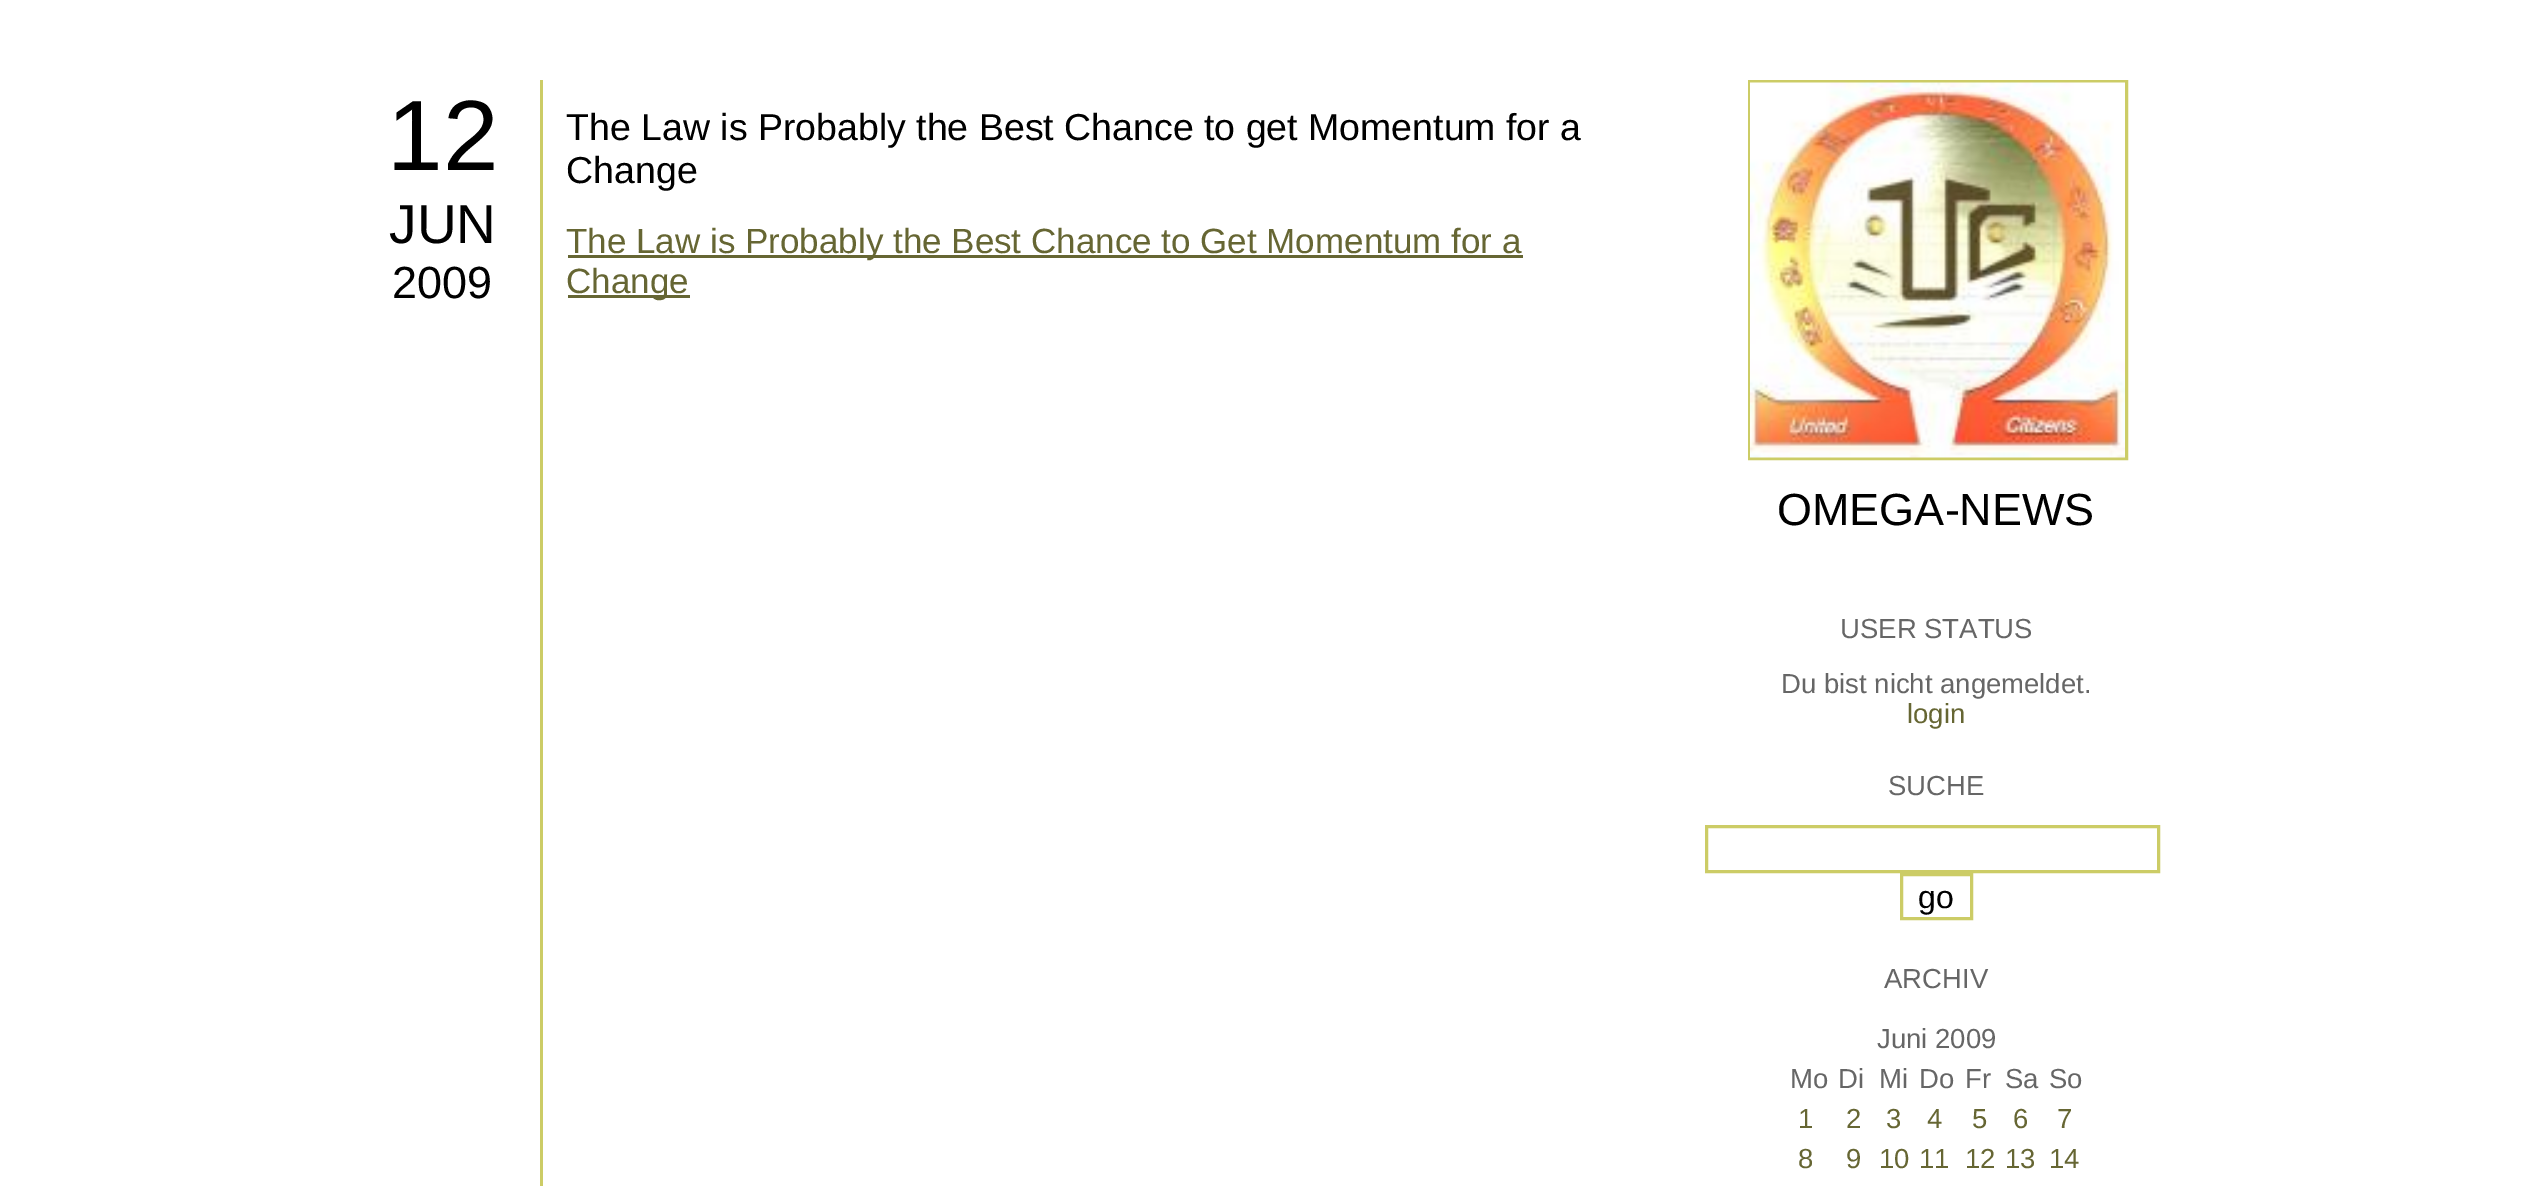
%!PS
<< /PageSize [2547 1186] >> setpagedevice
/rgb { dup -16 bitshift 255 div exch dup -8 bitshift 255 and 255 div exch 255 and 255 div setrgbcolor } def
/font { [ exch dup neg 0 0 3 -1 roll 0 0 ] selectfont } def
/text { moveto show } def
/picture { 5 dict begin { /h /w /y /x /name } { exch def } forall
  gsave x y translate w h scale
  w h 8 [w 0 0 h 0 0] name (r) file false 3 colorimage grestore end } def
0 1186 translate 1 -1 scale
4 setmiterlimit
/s1 { /LiberationSans-Regular 100 font 16#000000 rgb } def
/s2 { /LiberationSans-Regular 55 font 16#000000 rgb } def
/s3 { /LiberationSans-Regular 45 font 16#000000 rgb } def
/s4 { /LiberationSans-Regular 37.5 font 16#000000 rgb } def
/s5 { /LiberationSans-Regular 35 font 16#666633 rgb } def
/s6 { /LiberationSans-Regular 27.5 font 16#666666 rgb } def
/s7 { /LiberationSans-Regular 27.5 font 16#666633 rgb } def
/s8 { /LiberationSans-Regular 32 font 16#000000 rgb } def
16#FFFFFF rgb
0 0 2547 1186 rectfill
s1
(12) 387 170 text
s2
(JUN) 389 243 text
s3
(2009) 392 298 text
16#CCCC66 rgb
540 80 3 1106 rectfill
s4
(The Law is Probably the Best Chance to get Momentum for a) 566 140 text
(Change) 566 183 text
16#666633 rgb
568 255 955 3 rectfill
s5
(The Law is Probably the Best Chance to Get Momentum for a) 566 253 text
568 295 122 3 rectfill
(Change) 566 293 text
16#CCCC66 rgb
3 setlinewidth
1749.5 81.5 377 377 rectstroke
(pic1.raw) 1750 82 375 376 picture
s3
(OMEGA-NEWS) 1777 525 text
s6
(USER STATUS) 1840 638 text
(Du bist nicht angemeldet.) 1781 693 text
s7
(login) 1907 723 text
s6
(SUCHE) 1888 795 text
16#CCCC66 rgb
1706.5 826.5 452 45 rectstroke
1901.5 874.5 70 44 rectstroke
s8
(go) 1918 908 text
s6
(ARCHIV) 1884 988 text
(Juni 2009) 1877 1048 text
(Mo) 1790 1088 text
(Di) 1838 1088 text
(Mi) 1879 1088 text
(Do) 1919 1088 text
(Fr) 1965 1088 text
(Sa) 2005 1088 text
(So) 2049 1088 text
s7
(1) 1798 1128 text
(2) 1846 1128 text
(3) 1886 1128 text
(4) 1927 1128 text
(5) 1972 1128 text
(6) 2013 1128 text
(7) 2057 1128 text
(8) 1798 1168 text
(9) 1846 1168 text
(10) 1879 1168 text
(11) 1919 1168 text
(12) 1965 1168 text
(13) 2005 1168 text
(14) 2049 1168 text
showpage
